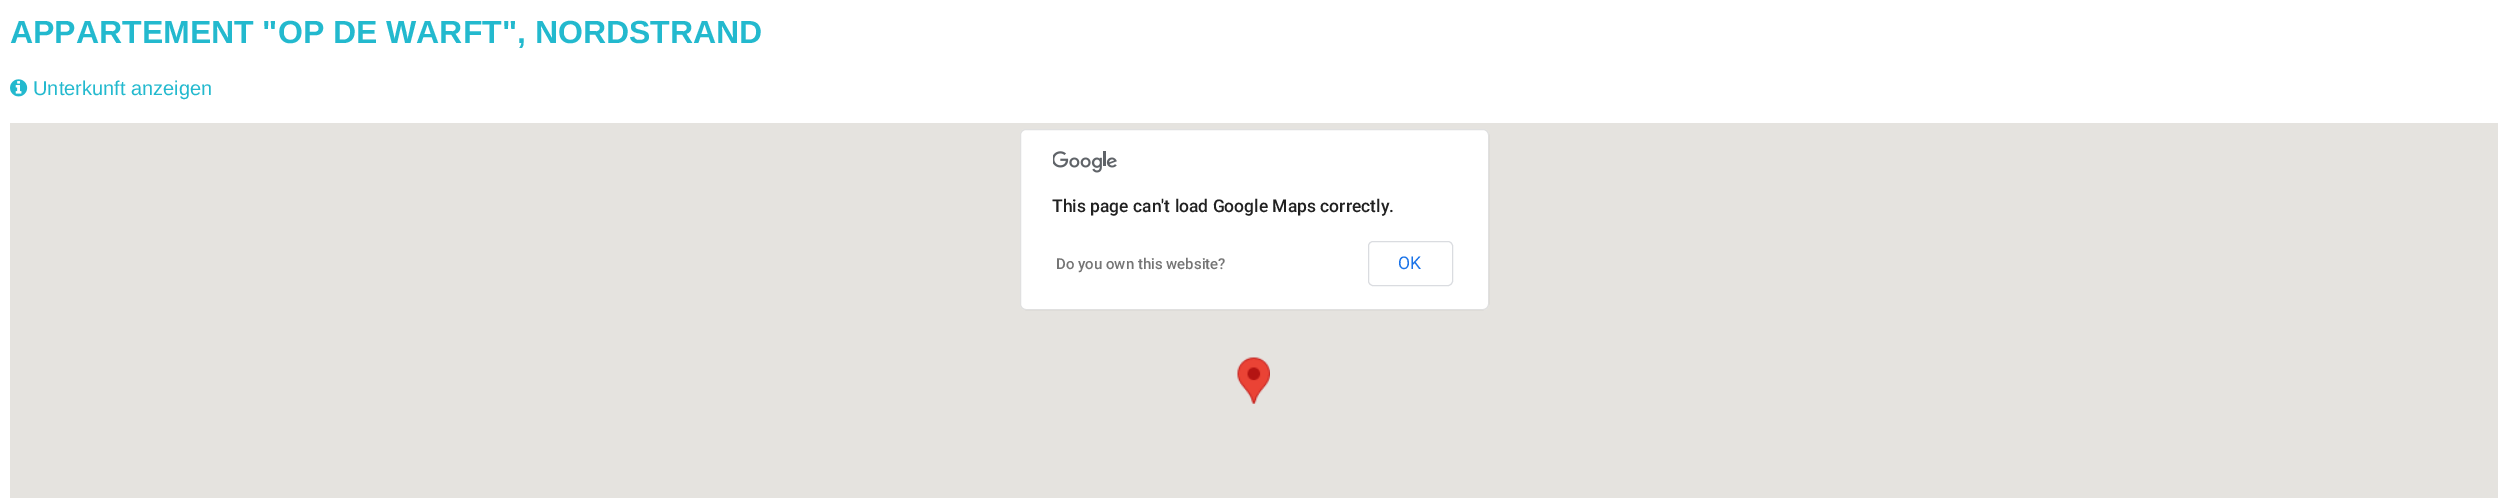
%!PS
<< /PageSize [2507 498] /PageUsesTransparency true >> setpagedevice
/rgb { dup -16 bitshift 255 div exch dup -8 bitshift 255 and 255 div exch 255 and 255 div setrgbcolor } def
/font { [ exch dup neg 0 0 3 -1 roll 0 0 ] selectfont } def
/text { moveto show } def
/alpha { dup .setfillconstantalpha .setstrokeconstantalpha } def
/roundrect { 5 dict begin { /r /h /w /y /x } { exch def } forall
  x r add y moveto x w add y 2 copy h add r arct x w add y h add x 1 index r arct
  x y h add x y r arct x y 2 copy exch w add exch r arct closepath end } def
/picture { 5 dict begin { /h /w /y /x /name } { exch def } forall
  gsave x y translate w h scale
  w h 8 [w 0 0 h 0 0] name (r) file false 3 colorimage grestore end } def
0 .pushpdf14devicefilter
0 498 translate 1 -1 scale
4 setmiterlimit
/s1 { /LiberationSans-Bold 32 font 16#23B9CE rgb } def
/s2 { /LiberationSans-Regular 20 font 16#23B9CE rgb } def
/s3 { /Roboto-Medium 17.5 font 16#212121 rgb } def
/s4 { /Roboto-Medium 15 font 16#757575 rgb } def
/s5 { /Roboto-Regular 17.5 font 16#1A73E8 rgb } def
16#FFFFFF rgb
0 0 2507 498 rectfill
s1
(APPARTEMENT "OP DE WARFT", NORDSTRAND) 10 43 text
(pic1.raw) 10 79 18 18 picture
s2
(Unterkunft anzeigen) 33 95 text
16#E5E3DF rgb
10 123 2488 375 rectfill
(pic2.raw) 1237 357 33 47 picture
16#FFFFFF rgb
1020 129 469 181 6 roundrect fill
0.12 alpha
16#000000 rgb
1020.5 129.5 468 180 5.5 roundrect stroke
1 alpha
(pic3.raw) 1053 151 64 22 picture
s3
(This page can't load Google Maps correctly.) 1052 212 text
s4
(Do you own this website?) 1056 269 text
16#DADCE0 rgb
1368.5 241.5 84 44 4.5 roundrect stroke
s5
(OK) 1398 269 text
.poppdf14devicefilter showpage
